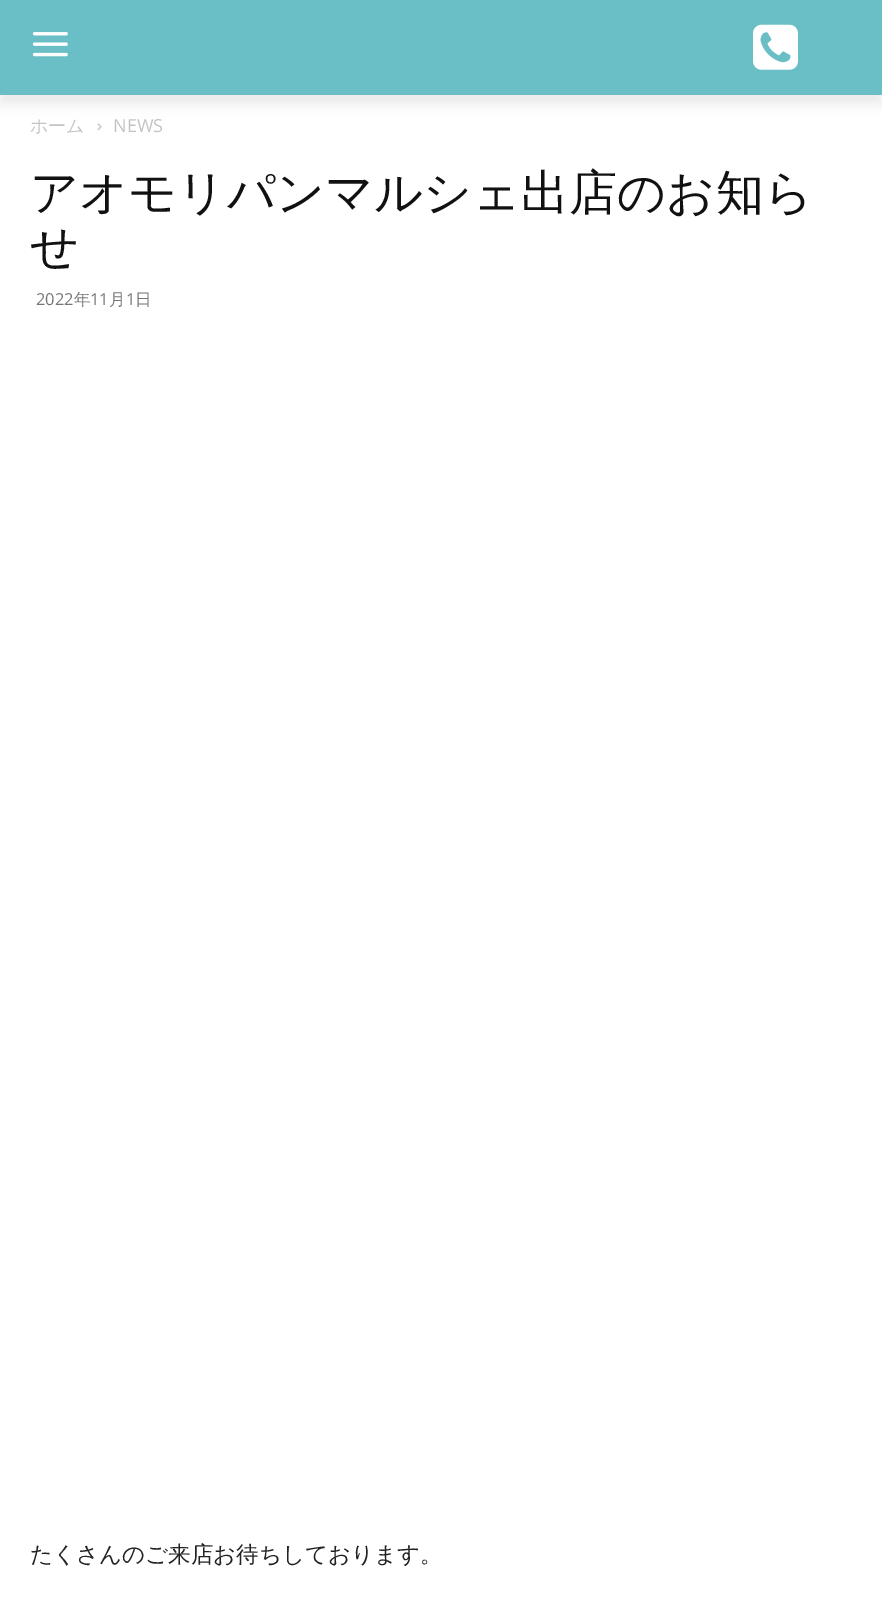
%!PS
<< /PageSize [882 1605] /PageUsesTransparency true >> setpagedevice
/rgb { dup -16 bitshift 255 div exch dup -8 bitshift 255 and 255 div exch 255 and 255 div setrgbcolor } def
/font { [ exch dup neg 0 0 3 -1 roll 0 0 ] selectfont } def
/text { moveto show } def
/alpha { dup .setfillconstantalpha .setstrokeconstantalpha } def
/roundrect { 5 dict begin { /r /h /w /y /x } { exch def } forall
  x r add y moveto x w add y 2 copy h add r arct x w add y h add x 1 index r arct
  x y h add x y r arct x y 2 copy exch w add exch r arct closepath end } def
/shadow { 12 dict begin { /a /b /q /h /w /y /x } { exch def } forall gsave /was 0 def
  9 -2 -9 { dup b mul 4 div /e exch def 1 sub .425 mul 2.718 exch exp 1 add a .99 .min exch div /now exch def
    1 1 now sub 1 was sub div sub alpha /was now def
    w h .min e 2 mul add 0 gt { x e sub y e sub w e 2 mul add h e 2 mul add
      q e add b .6 mul add w h .min 2 div e add .min 0 .max roundrect fill } if } for grestore end } def
/picture { 5 dict begin { /h /w /y /x /name } { exch def } forall
  gsave x y translate w h scale
  w h 8 [w 0 0 h 0 0] name (r) file false 3 colorimage grestore end } def
0 .pushpdf14devicefilter
0 1605 translate 1 -1 scale
4 setmiterlimit
/s1 { /WenQuanYiZenHei-Medium 18 font 16#C3C3C3 rgb } def
/s2 { /OpenSans-Regular 18 font 16#C3C3C3 rgb } def
/s3 { /WenQuanYiZenHei-Medium 48 font 16#111111 rgb } def
/s4 { /OpenSans-Regular 16.5 font 16#767676 rgb } def
/s5 { /WenQuanYiZenHei-Medium 16.5 font 16#767676 rgb } def
/s6 { /WenQuanYiZenHei-Medium 22.5 font 16#222222 rgb } def
16#FFFFFF rgb
0 0 882 1605 rectfill
16#6ABEC5 rgb
0 0 882 95 rectfill
(pic1.raw) 33 32 35 25 picture
gsave
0 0 moveto 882 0 lineto 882 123 lineto 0 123 lineto closepath 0 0 moveto 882 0 lineto 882 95 lineto 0 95 lineto closepath eoclip newpath
16#000000 rgb
0 9 882 95 0 6 0.08 shadow
grestore
(pic2.raw) 753 24 45 46 picture
s1
(ホーム) 30 132 text
(pic3.raw) 97 123 5 8 picture
s2
(NEWS) 113 132 text
s3
(アオモリパンマルシェ出店のお知ら) 30 209 text
(せ) 30 263 text
s4
(2022) 36 305 text
s5
(年) 74 305 text
s4
(11) 90 305 text
s5
(月) 109 305 text
s4
(1) 126 305 text
s5
(日) 135 305 text
s6
(たくさんのご来店お待ちしております。) 30 1562 text
.poppdf14devicefilter showpage
